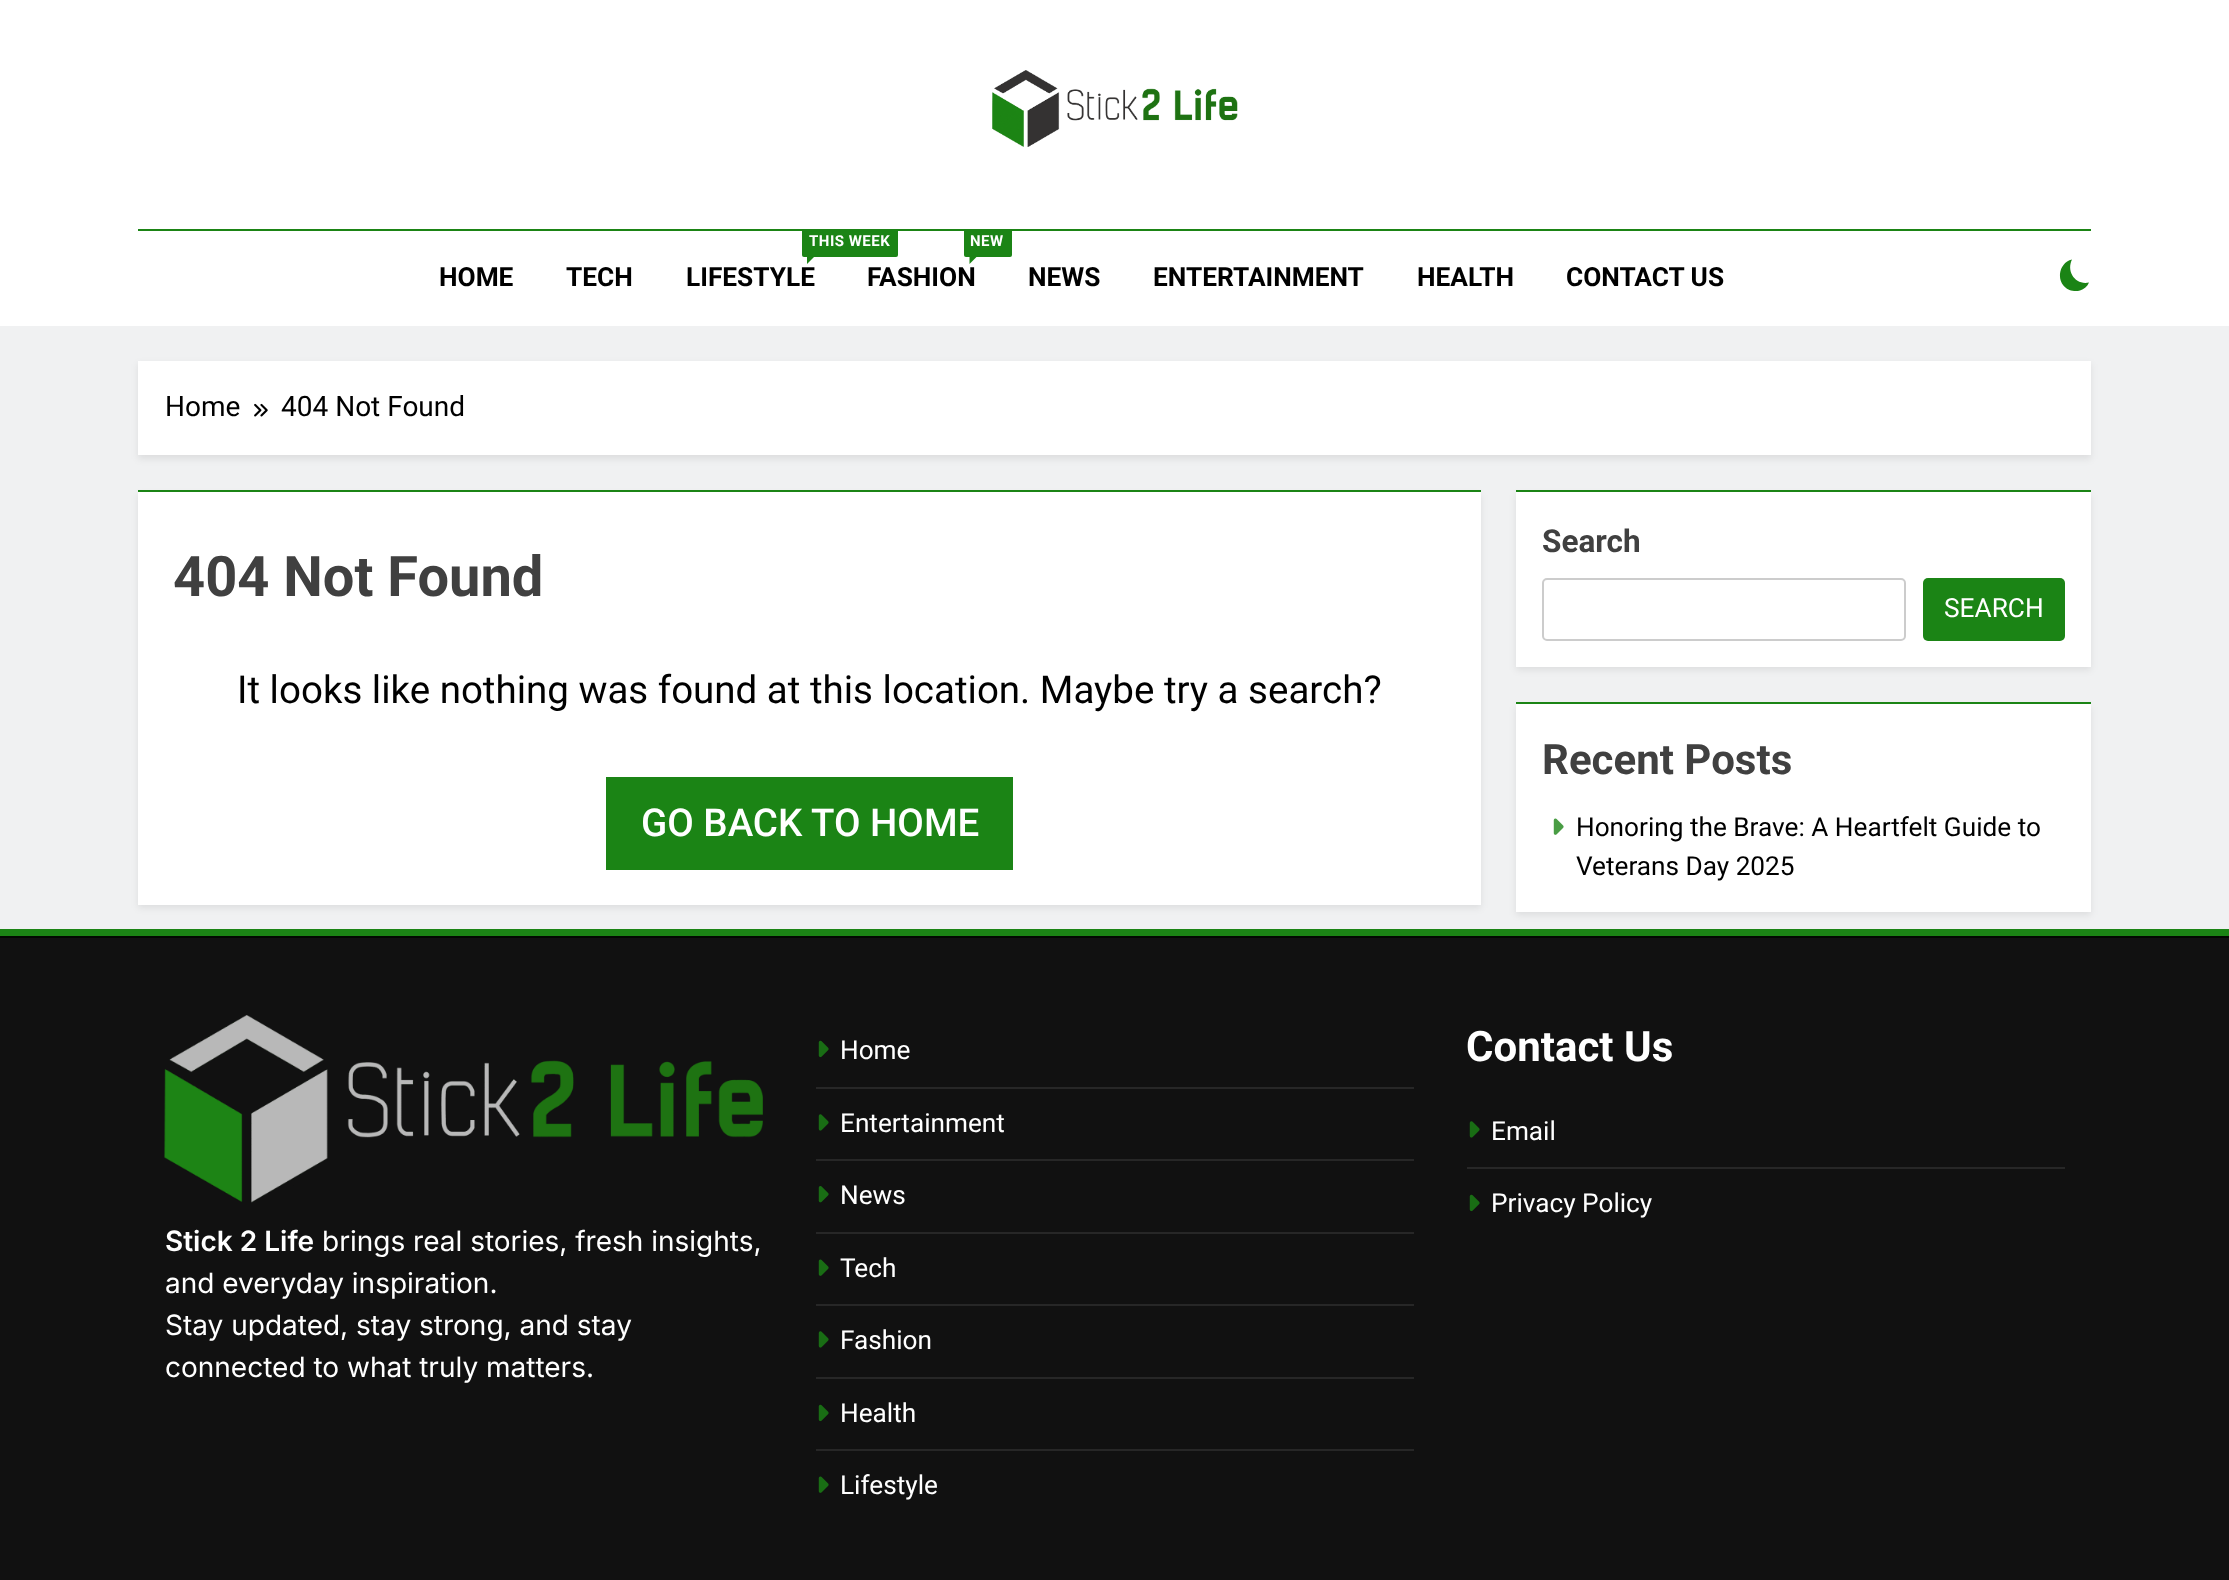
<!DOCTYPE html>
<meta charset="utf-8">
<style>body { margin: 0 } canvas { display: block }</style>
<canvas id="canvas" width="2229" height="1580"></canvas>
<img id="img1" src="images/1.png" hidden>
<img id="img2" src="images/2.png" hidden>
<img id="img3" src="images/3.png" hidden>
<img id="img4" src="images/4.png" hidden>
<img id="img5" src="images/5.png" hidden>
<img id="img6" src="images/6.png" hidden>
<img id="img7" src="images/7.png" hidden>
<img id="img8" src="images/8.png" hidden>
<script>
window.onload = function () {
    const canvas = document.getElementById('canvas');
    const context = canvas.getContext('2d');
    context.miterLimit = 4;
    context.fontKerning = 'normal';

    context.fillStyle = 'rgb(240, 241, 242)';
    context.fillRect(0, 0, 2229, 1580);
    context.fillStyle = 'rgb(17, 17, 17)';
    context.fillRect(0, 938, 2229, 642);
    context.fillStyle = 'rgb(255, 255, 255)';
    context.fillRect(0, 0, 2229, 326);
    context.drawImage(document.getElementById('img1'), 992, 70, 246, 77);
    context.fillStyle = 'rgb(27, 132, 21)';
    context.fillRect(138, 229, 1953, 2);
    context.beginPath();
    context.roundRect(802, 229, 96, 28, 2);
    context.fill();
    context.beginPath();
    context.moveTo(807, 255.5);
    context.lineTo(815.5, 255.5);
    context.lineTo(807, 264);
    context.closePath();
    context.fill();
    context.beginPath();
    context.roundRect(964, 229, 48, 28, 2);
    context.fill();
    context.beginPath();
    context.moveTo(969.5, 255.5);
    context.lineTo(978, 255.5);
    context.lineTo(969.5, 264);
    context.closePath();
    context.fill();
    context.beginPath();
    context.moveTo(2089, 282.5);
    context.bezierCurveTo(2075.5, 285.5, 2066, 271.5, 2072, 259.5);
    context.bezierCurveTo(2057.5, 263, 2055.5, 284, 2069.5, 290);
    context.bezierCurveTo(2072.5, 291, 2076.5, 291.5, 2080, 290.5);
    context.bezierCurveTo(2084, 289, 2087.5, 286.5, 2089, 282.5);
    context.closePath();
    context.fill();
    context.fillStyle = 'rgba(0, 0, 0, 0.08)';
    context.filter = 'blur(3.5px)';
    context.beginPath();
    context.rect(138, 364, 1953, 95);
    context.fill();
    context.filter = 'none';
    context.fillStyle = 'rgb(255, 255, 255)';
    context.fillRect(138, 361, 1953, 94);
    context.drawImage(document.getElementById('img2'), 254, 403, 14, 14);
    context.fillStyle = 'rgba(0, 0, 0, 0.08)';
    context.filter = 'blur(3.5px)';
    context.beginPath();
    context.rect(138, 495, 1343, 413);
    context.fill();
    context.filter = 'none';
    context.fillStyle = 'rgb(255, 255, 255)';
    context.fillRect(138, 492, 1343, 413);
    context.fillStyle = 'rgb(27, 132, 21)';
    context.fillRect(138, 490, 1343, 2);
    context.fillRect(606, 777, 407, 93);
    context.fillStyle = 'rgba(0, 0, 0, 0.08)';
    context.filter = 'blur(3.5px)';
    context.beginPath();
    context.rect(1516, 495, 575, 175);
    context.fill();
    context.filter = 'none';
    context.fillStyle = 'rgb(255, 255, 255)';
    context.fillRect(1516, 492, 575, 175);
    context.fillStyle = 'rgb(27, 132, 21)';
    context.fillRect(1516, 490, 575, 2);
    context.beginPath();
    context.roundRect(1543, 579, 362, 61, 4);
    context.strokeStyle = 'rgb(204, 204, 204)';
    context.lineWidth = 2;
    context.stroke();
    context.beginPath();
    context.roundRect(1923, 578, 142, 63, 5);
    context.fill();
    context.fillStyle = 'rgba(0, 0, 0, 0.08)';
    context.filter = 'blur(3.5px)';
    context.beginPath();
    context.rect(1516, 707, 575, 208);
    context.fill();
    context.filter = 'none';
    context.fillStyle = 'rgb(255, 255, 255)';
    context.fillRect(1516, 704, 575, 208);
    context.fillStyle = 'rgb(27, 132, 21)';
    context.fillRect(1516, 702, 575, 2);
    context.drawImage(document.getElementById('img3'), 1553, 818, 11, 17);
    context.fillRect(0, 929, 2229, 7);
    context.fillStyle = 'rgb(2, 9, 1)';
    context.fillRect(0, 936, 2229, 2);
    context.drawImage(document.getElementById('img4'), 164, 1015, 599, 188);
    context.fillStyle = 'rgb(39, 39, 39)';
    context.fillRect(816, 1087, 598, 2);
    context.drawImage(document.getElementById('img5'), 818, 1040, 11, 18);
    context.fillRect(816, 1159, 598, 2);
    context.drawImage(document.getElementById('img6'), 818, 1114, 11, 17);
    context.fillRect(816, 1232, 598, 2);
    context.drawImage(document.getElementById('img7'), 818, 1186, 11, 17);
    context.fillRect(816, 1304, 598, 2);
    context.drawImage(document.getElementById('img8'), 818, 1259, 11, 17);
    context.fillRect(816, 1377, 598, 2);
    context.drawImage(document.getElementById('img6'), 818, 1331, 11, 17);
    context.fillRect(816, 1449, 598, 2);
    context.drawImage(document.getElementById('img5'), 818, 1404, 11, 18);
    context.drawImage(document.getElementById('img8'), 818, 1476, 11, 17);
    context.fillRect(1467, 1167, 598, 2);
    context.drawImage(document.getElementById('img6'), 1469, 1121, 11, 17);
    context.drawImage(document.getElementById('img5'), 1469, 1194, 11, 18);
    context.font = 'bold 26.25px Roboto';
    context.fillStyle = 'rgb(0, 0, 0)';
    context.fillText('HOME', 439, 286);
    context.fillText('TECH', 566, 286);
    context.letterSpacing = '0.5px';
    context.font = 'bold 15px Roboto';
    context.fillStyle = 'rgb(255, 255, 255)';
    context.fillText('THIS WEEK', 809, 246);
    context.letterSpacing = '0px';
    context.font = 'bold 26.25px Roboto';
    context.fillStyle = 'rgb(0, 0, 0)';
    context.fillText('LIFESTYLE', 686, 286);
    context.letterSpacing = '0.5px';
    context.font = 'bold 15px Roboto';
    context.fillStyle = 'rgb(255, 255, 255)';
    context.fillText('NEW', 970, 246);
    context.letterSpacing = '0px';
    context.font = 'bold 26.25px Roboto';
    context.fillStyle = 'rgb(0, 0, 0)';
    context.fillText('FASHION', 867, 286);
    context.fillText('NEWS', 1028, 286);
    context.fillText('ENTERTAINMENT', 1153, 286);
    context.fillText('HEALTH', 1417, 286);
    context.fillText('CONTACT US', 1566, 286);
    context.font = '28px Roboto';
    context.fillText('Home', 165, 416);
    context.fillText('404 Not Found', 281, 416);
    context.font = 'bold 56px Roboto';
    context.fillStyle = 'rgb(64, 64, 64)';
    context.fillText('404 Not Found', 173, 596);
    context.font = '38.5px Roboto';
    context.fillStyle = 'rgb(0, 0, 0)';
    context.fillText('It looks like nothing was found at this location. Maybe try a search?', 237, 703);
    context.font = '500 38.5px Roboto';
    context.fillStyle = 'rgb(255, 255, 255)';
    context.fillText('GO BACK TO HOME', 641, 836);
    context.font = 'bold 31.5px Roboto';
    context.fillStyle = 'rgb(64, 64, 64)';
    context.fillText('Search', 1542, 552);
    context.font = '26.25px Roboto';
    context.fillStyle = 'rgb(255, 255, 255)';
    context.fillText('SEARCH', 1944, 617);
    context.font = 'bold 42px Roboto';
    context.fillStyle = 'rgb(64, 64, 64)';
    context.fillText('Recent Posts', 1542, 774);
    context.font = '26.2px Roboto';
    context.fillStyle = 'rgb(0, 0, 0)';
    context.fillText('Honoring the Brave: A Heartfelt Guide to', 1576, 836);
    context.fillText('Veterans Day 2025', 1576, 875);
    context.font = '600 28px Inter';
    context.fillStyle = 'rgb(255, 255, 255)';
    context.fillText('Stick 2 Life', 165, 1251);
    context.font = '28px Inter';
    context.fillText('brings real stories, fresh insights,', 322, 1251);
    context.fillText('and everyday inspiration.', 165, 1293);
    context.fillText('Stay updated, stay strong, and stay', 165, 1335);
    context.fillText('connected to what truly matters.', 165, 1377);
    context.font = '26.2px Roboto';
    context.fillText('Home', 840, 1059);
    context.fillText('Entertainment', 840, 1132);
    context.fillText('News', 840, 1204);
    context.fillText('Tech', 840, 1277);
    context.fillText('Fashion', 840, 1349);
    context.fillText('Health', 840, 1422);
    context.fillText('Lifestyle', 840, 1494);
    context.font = 'bold 42px Roboto';
    context.fillText('Contact Us', 1466, 1061);
    context.font = '26.2px Roboto';
    context.fillText('Email', 1491, 1140);
    context.fillText('Privacy Policy', 1491, 1212);
};
</script>
